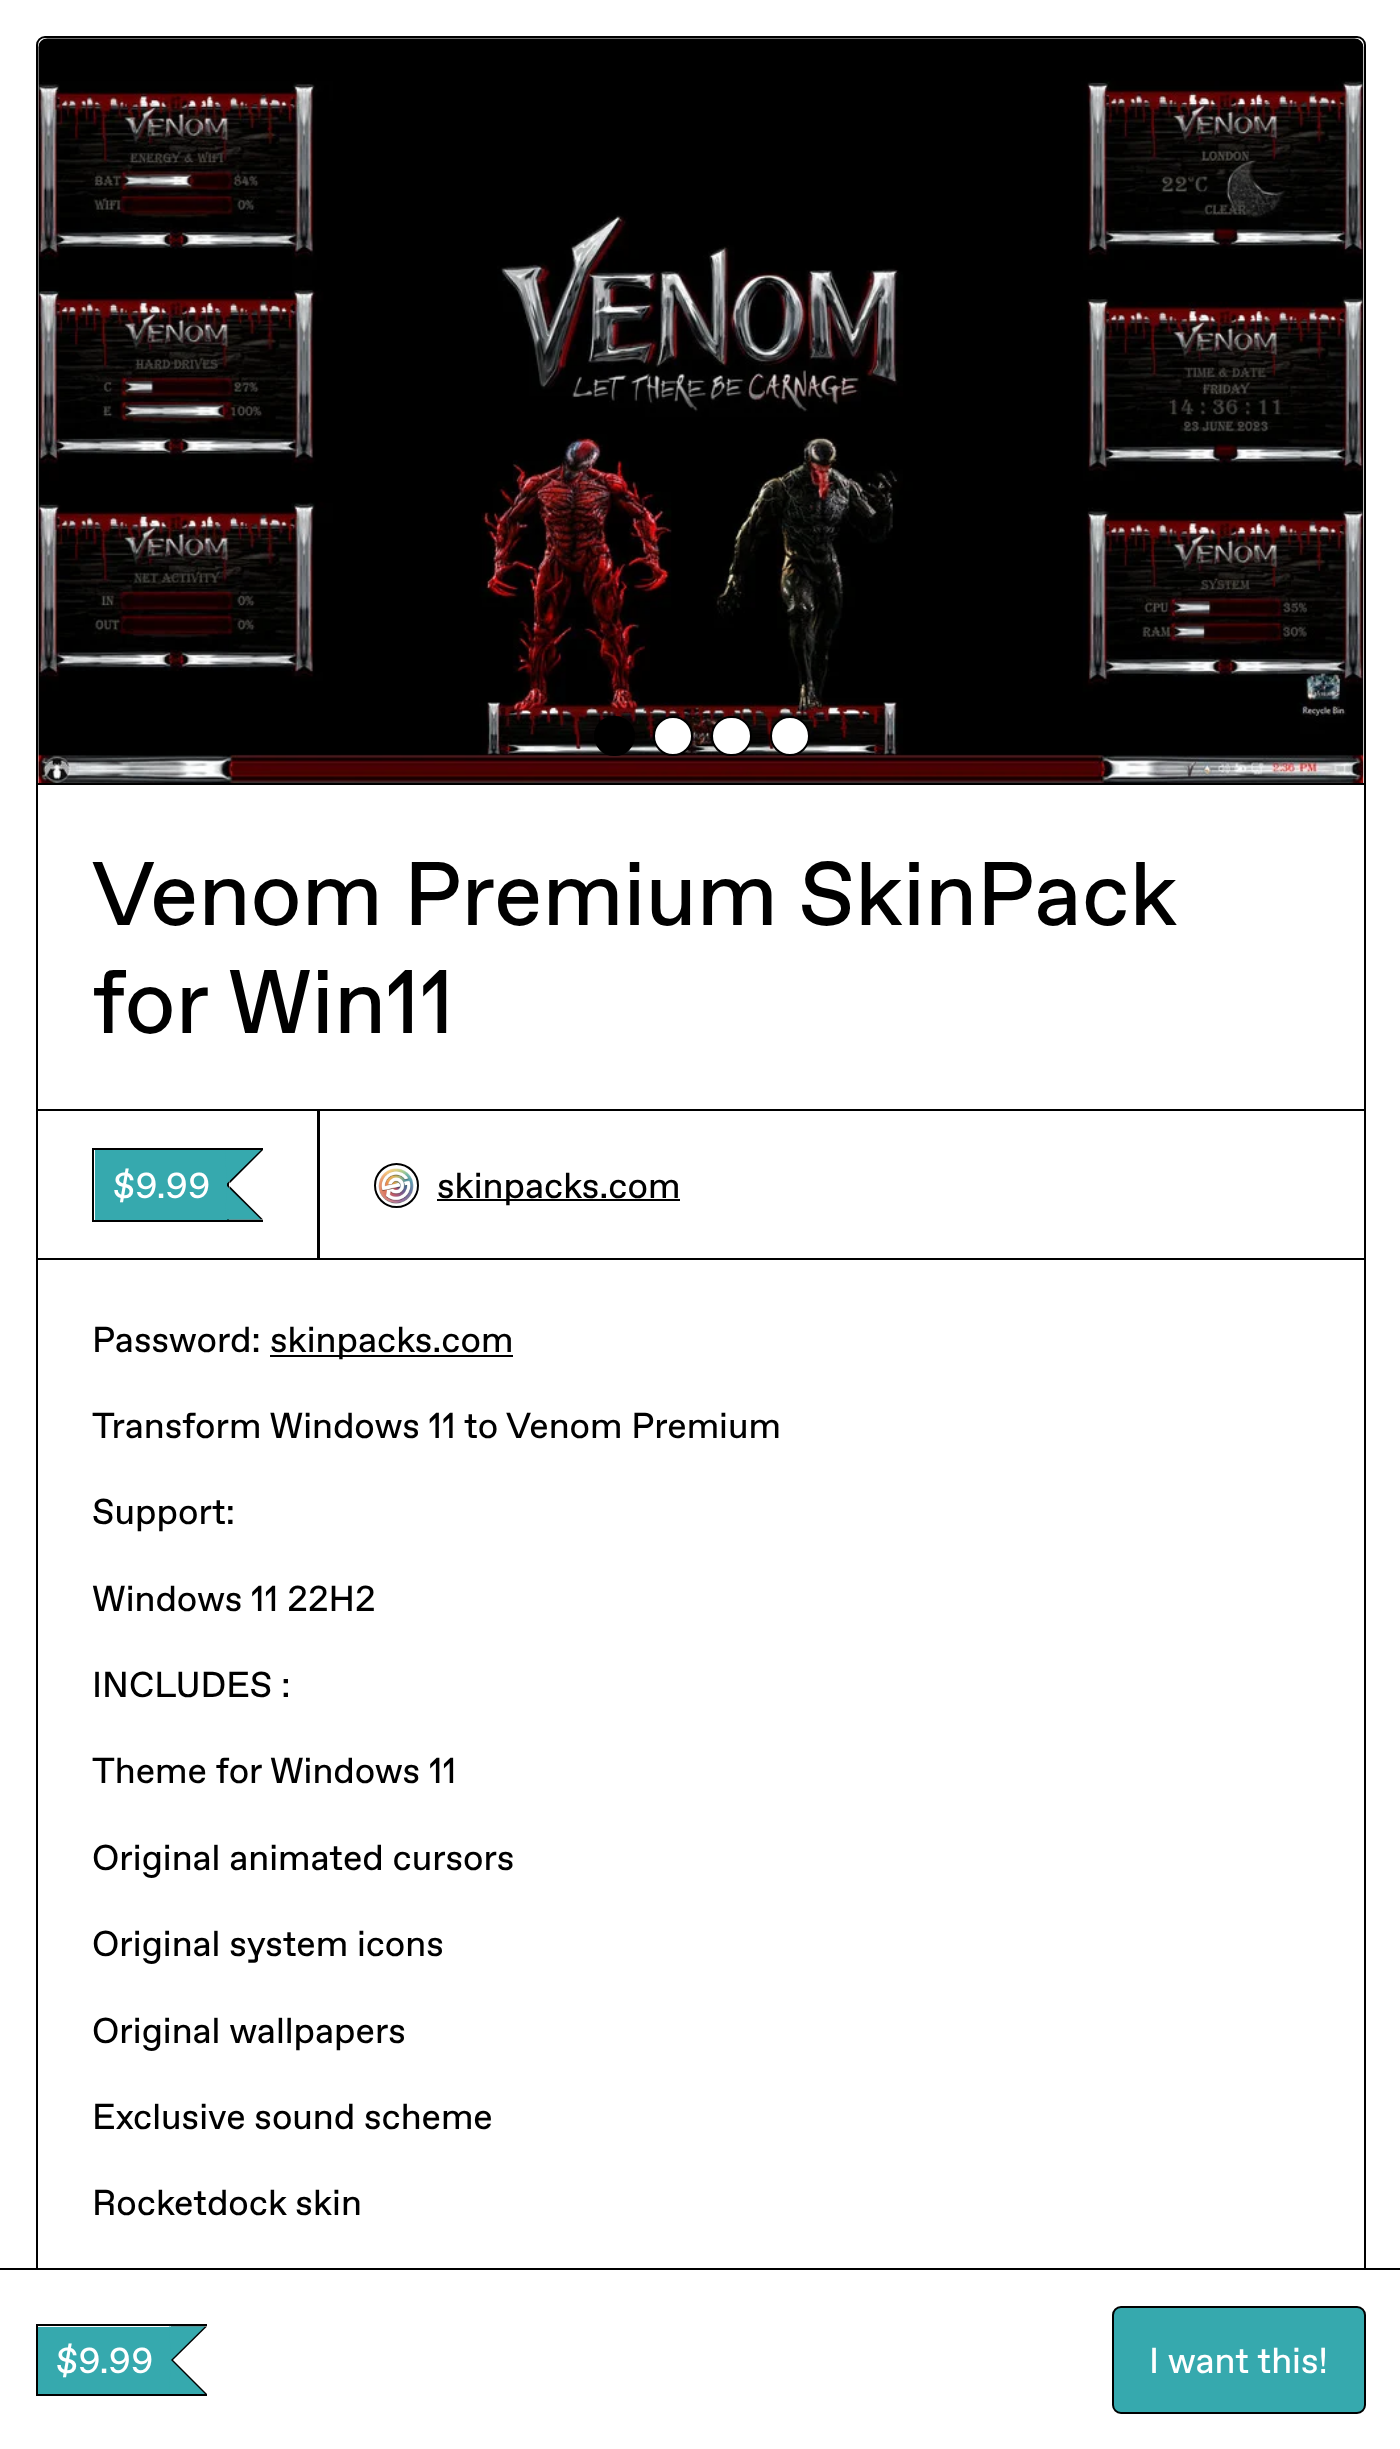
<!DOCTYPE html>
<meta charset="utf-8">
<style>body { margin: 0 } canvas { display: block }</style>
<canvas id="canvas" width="1400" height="2449"></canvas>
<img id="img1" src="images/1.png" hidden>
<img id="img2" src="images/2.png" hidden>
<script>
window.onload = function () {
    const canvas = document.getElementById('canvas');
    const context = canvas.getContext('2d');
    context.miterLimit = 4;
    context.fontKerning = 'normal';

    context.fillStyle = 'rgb(255, 255, 255)';
    context.fillRect(0, 0, 1400, 2449);
    context.beginPath();
    context.roundRect(37, 37, 1328, 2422, 8);
    context.strokeStyle = 'rgb(0, 0, 0)';
    context.lineWidth = 2;
    context.stroke();
    context.fillStyle = 'rgb(0, 0, 0)';
    context.fillRect(38, 783, 1326, 2);
    context.drawImage(document.getElementById('img1'), 38, 38, 1326, 745);
    context.beginPath();
    context.roundRect(595, 717, 39, 38, 19);
    context.fill();
    context.stroke();
    context.fillStyle = 'rgb(255, 255, 255)';
    context.beginPath();
    context.arc(673, 736, 19, 0, 2 * Math.PI);
    context.fill();
    context.stroke();
    context.beginPath();
    context.roundRect(712, 717, 39, 38, 19);
    context.fill();
    context.stroke();
    context.beginPath();
    context.arc(790, 736, 19, 0, 2 * Math.PI);
    context.fill();
    context.stroke();
    context.strokeRect(37, 1110, 282, 149);
    context.fillStyle = 'rgb(0, 0, 0)';
    context.fillRect(92, 1148, 171, 2);
    context.fillRect(92, 1220, 171, 2);
    context.fillRect(92, 1148, 2, 74);
    context.fillStyle = 'rgb(54, 169, 174)';
    context.fillRect(95, 1150, 132, 70);
    context.fillStyle = 'rgb(0, 0, 0)';
    context.beginPath();
    context.moveTo(227, 1150);
    context.lineTo(263, 1150);
    context.lineTo(229.5, 1183.5);
    context.closePath();
    context.fill();
    context.beginPath();
    context.moveTo(263, 1219.5);
    context.lineTo(227, 1219.5);
    context.lineTo(229.5, 1186);
    context.closePath();
    context.fill();
    context.fillRect(227, 1181, 2, 39);
    context.fillStyle = 'rgb(54, 169, 174)';
    context.beginPath();
    context.moveTo(225, 1150);
    context.lineTo(261, 1150);
    context.lineTo(227, 1183.5);
    context.closePath();
    context.fill();
    context.beginPath();
    context.moveTo(261, 1219.5);
    context.lineTo(225, 1219.5);
    context.lineTo(227, 1186);
    context.closePath();
    context.fill();
    context.strokeRect(318, 1110, 1047, 149);
    context.beginPath();
    context.arc(396.5, 1185.5, 21.5, 0, 2 * Math.PI);
    context.stroke();
    context.drawImage(document.getElementById('img2'), 378, 1168, 36, 36);
    context.fillStyle = 'rgb(0, 0, 0)';
    context.fillRect(437, 1199, 243, 2);
    context.fillRect(270, 1355, 243, 2);
    context.beginPath();
    context.moveTo(0, 2268);
    context.lineTo(0, 2270);
    context.lineTo(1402, 2270);
    context.lineTo(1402, 2448);
    context.lineTo(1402, 2268);
    context.closePath();
    context.fill();
    context.fillStyle = 'rgb(255, 255, 255)';
    context.fillRect(36, 2270, 1330, 179);
    context.fillStyle = 'rgb(0, 0, 0)';
    context.fillRect(36, 2324, 171, 2);
    context.fillRect(36, 2394, 171, 2);
    context.fillRect(36, 2324, 2, 72);
    context.fillStyle = 'rgb(54, 169, 174)';
    context.fillRect(38, 2327, 133, 67);
    context.fillStyle = 'rgb(0, 0, 0)';
    context.beginPath();
    context.moveTo(171, 2326.5);
    context.lineTo(207, 2326.5);
    context.lineTo(173, 2360);
    context.closePath();
    context.fill();
    context.beginPath();
    context.moveTo(207, 2394);
    context.lineTo(171, 2394);
    context.lineTo(173, 2360);
    context.closePath();
    context.fill();
    context.fillRect(171, 2358, 2, 4);
    context.fillStyle = 'rgb(54, 169, 174)';
    context.beginPath();
    context.moveTo(169, 2326.5);
    context.lineTo(205, 2326.5);
    context.lineTo(171, 2360);
    context.closePath();
    context.fill();
    context.beginPath();
    context.moveTo(205, 2394);
    context.lineTo(169, 2394);
    context.lineTo(171, 2360);
    context.closePath();
    context.fill();
    context.beginPath();
    context.roundRect(1113, 2307, 252, 106, 8);
    context.fill();
    context.stroke();
    context.wordSpacing = '-1px';
    context.font = '90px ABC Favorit';
    context.fillStyle = 'rgb(0, 0, 0)';
    context.fillText('Venom Premium SkinPack', 92, 925);
    context.wordSpacing = '0px';
    context.fillText('for Win11', 92, 1033);
    context.font = '36px ABC Favorit';
    context.fillStyle = 'rgb(255, 255, 255)';
    context.fillText('$9.99', 113, 1198);
    context.fillStyle = 'rgb(0, 0, 0)';
    context.fillText('skinpacks.com', 437, 1198);
    context.fillText('Password:', 92, 1352);
    context.fillText('skinpacks.com', 270, 1352);
    context.fillText('Transform Windows 11 to Venom Premium', 92, 1438);
    context.fillText('Support:', 92, 1524);
    context.fillText('Windows 11 22H2', 92, 1611);
    context.fillText('INCLUDES :', 92, 1697);
    context.fillText('Theme for Windows 11', 92, 1783);
    context.fillText('Original animated cursors', 92, 1870);
    context.fillText('Original system icons', 92, 1956);
    context.fillText('Original wallpapers', 92, 2043);
    context.fillText('Exclusive sound scheme', 92, 2129);
    context.fillText('Rocketdock skin', 92, 2215);
    context.fillStyle = 'rgb(255, 255, 255)';
    context.fillText('$9.99', 56, 2373);
    context.fillText('I want this!', 1149, 2373);
};
</script>
